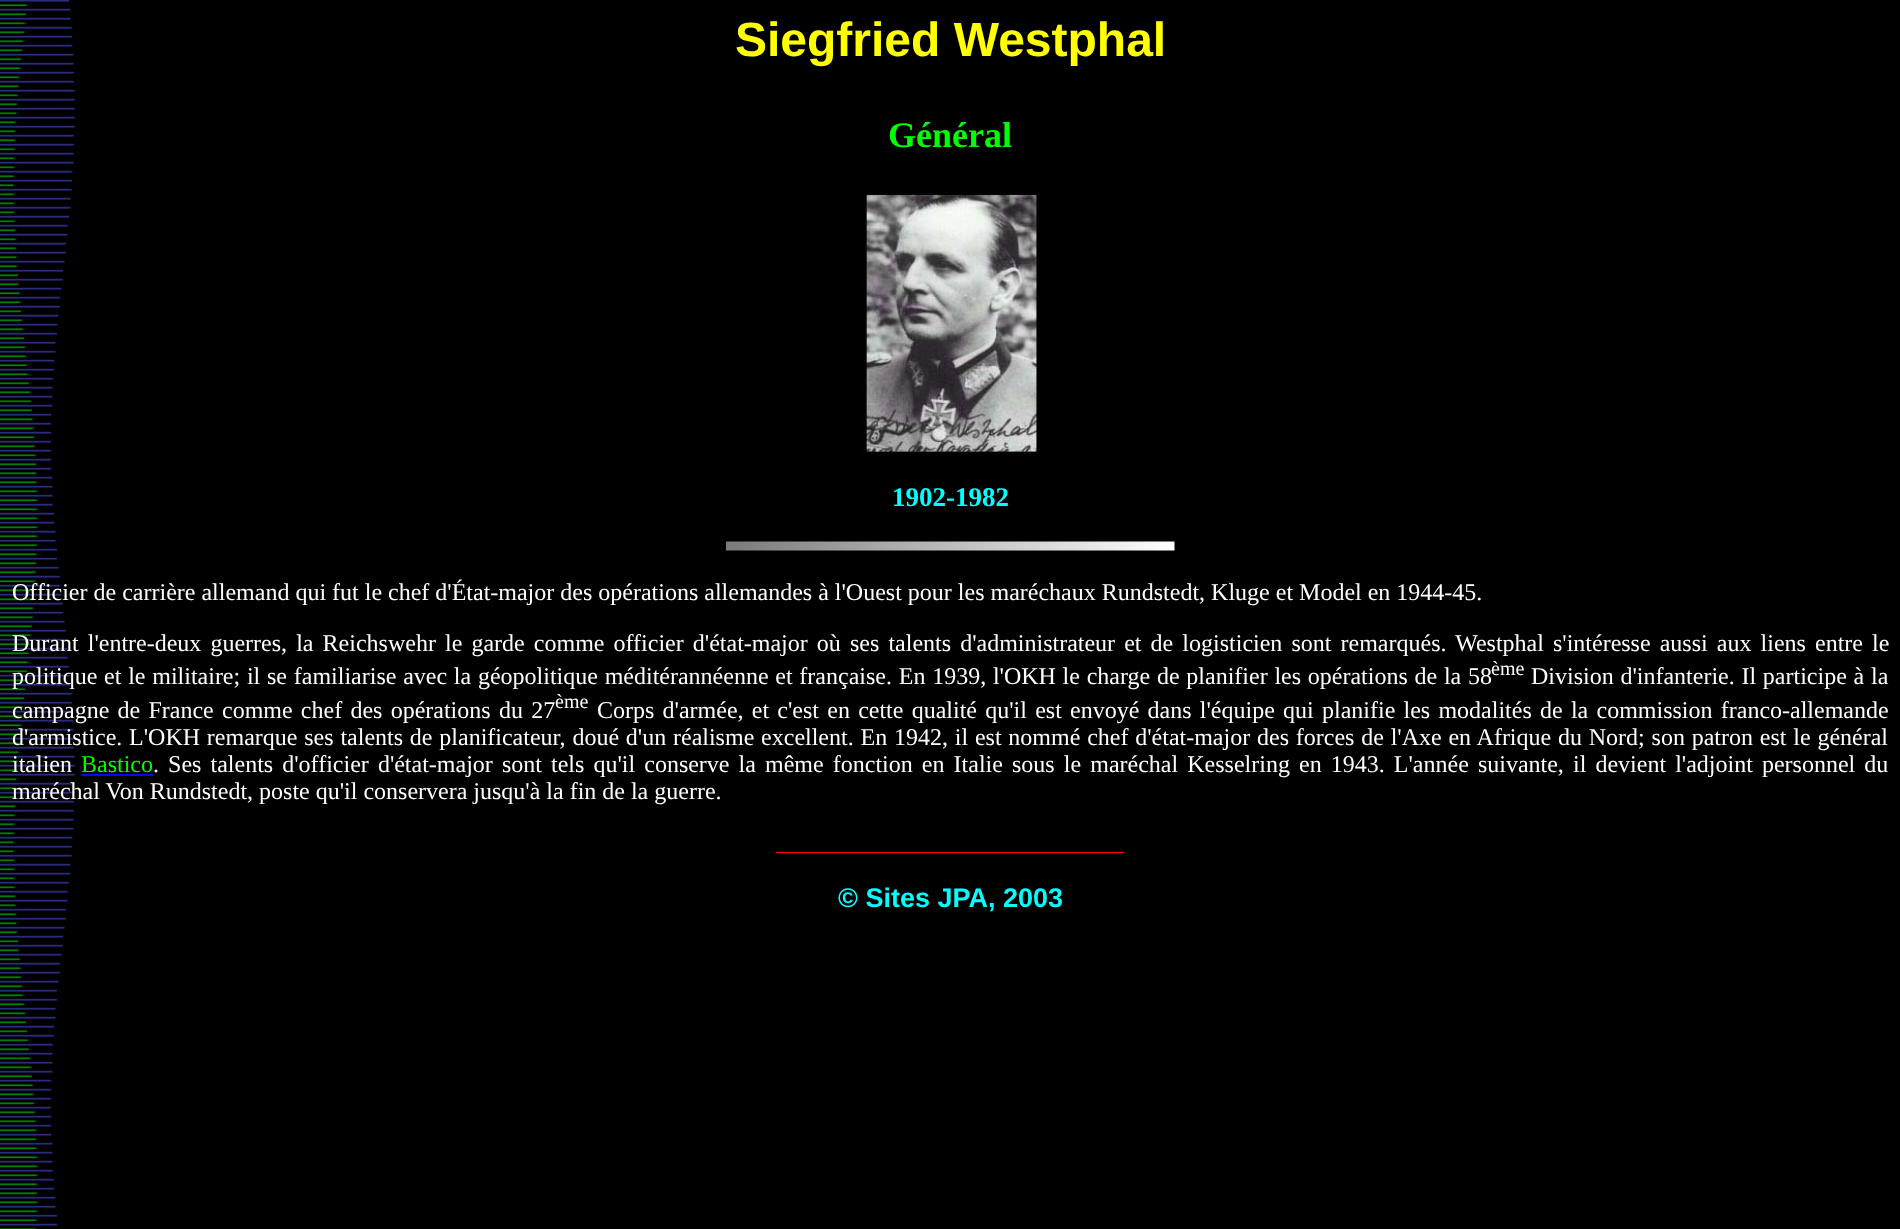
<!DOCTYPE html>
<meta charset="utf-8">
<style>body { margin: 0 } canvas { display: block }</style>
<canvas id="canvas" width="1900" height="1229"></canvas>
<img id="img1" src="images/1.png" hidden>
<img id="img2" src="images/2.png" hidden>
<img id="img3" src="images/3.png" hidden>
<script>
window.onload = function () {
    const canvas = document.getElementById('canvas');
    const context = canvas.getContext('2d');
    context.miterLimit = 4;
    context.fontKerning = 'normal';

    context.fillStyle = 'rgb(255, 255, 255)';
    context.fillRect(0, 0, 1900, 1229);
    context.drawImage(document.getElementById('img1'), 0, 0, 1900, 1229);
    context.drawImage(document.getElementById('img2'), 862, 192, 177, 263);
    context.drawImage(document.getElementById('img3'), 726, 541, 449, 10);
    context.fillStyle = 'rgb(0, 0, 255)';
    context.fillRect(81, 774, 72, 2);
    context.font = 'bold 48px Liberation Sans';
    context.fillStyle = 'rgb(255, 255, 0)';
    context.fillText('Siegfried Westphal', 735, 56);
    context.font = 'bold 36px Liberation Serif';
    context.fillStyle = 'rgb(0, 255, 0)';
    context.fillText('Général', 888, 147);
    context.font = 'bold 27px Liberation Serif';
    context.fillStyle = 'rgb(0, 255, 255)';
    context.fillText('1902-1982', 892, 506);
    context.font = '24px Liberation Serif';
    context.fillStyle = 'rgb(255, 255, 255)';
    context.fillText('Officier de carrière allemand qui fut le chef d\'État-major des opérations allemandes à l\'Ouest pour les maréchaux Rundstedt, Kluge et Model en 1944-45.', 12, 600);
    context.wordSpacing = '3.1px';
    context.fillText('Durant l\'entre-deux guerres, la Reichswehr le garde comme officier d\'état-major où ses talents d\'administrateur et de logisticien sont remarqués. Westphal s\'intéresse aussi aux liens entre le', 12, 651);
    context.wordSpacing = '0.75px';
    context.fillText('politique et le militaire; il se familiarise avec la géopolitique méditérannéenne et française. En 1939, l\'OKH le charge de planifier les opérations de la 58', 12, 684);
    context.wordSpacing = '0px';
    context.font = '20px Liberation Serif';
    context.fillText('ème', 1491, 675);
    context.wordSpacing = '0.75px';
    context.font = '24px Liberation Serif';
    context.fillText('Division d\'infanterie. Il participe à la', 1531, 684);
    context.wordSpacing = '2.25px';
    context.fillText('campagne de France comme chef des opérations du 27', 12, 718);
    context.wordSpacing = '0px';
    context.font = '20px Liberation Serif';
    context.fillText('ème', 555, 708);
    context.wordSpacing = '2.25px';
    context.font = '24px Liberation Serif';
    context.fillText('Corps d\'armée, et c\'est en cette qualité qu\'il est envoyé dans l\'équipe qui planifie les modalités de la commission franco-allemande', 597, 718);
    context.wordSpacing = '0.8px';
    context.fillText('d\'armistice. L\'OKH remarque ses talents de planificateur, doué d\'un réalisme excellent. En 1942, il est nommé chef d\'état-major des forces de l\'Axe en Afrique du Nord; son patron est le général', 12, 745);
    context.wordSpacing = '0px';
    context.fillText('italien', 12, 772);
    context.fillStyle = 'rgb(0, 255, 0)';
    context.fillText('Bastico', 81, 772);
    context.wordSpacing = '3.1px';
    context.fillStyle = 'rgb(255, 255, 255)';
    context.fillText('. Ses talents d\'officier d\'état-major sont tels qu\'il conserve la même fonction en Italie sous le maréchal Kesselring en 1943. L\'année suivante, il devient l\'adjoint personnel du', 153, 772);
    context.wordSpacing = '0px';
    context.fillText('maréchal Von Rundstedt, poste qu\'il conservera jusqu\'à la fin de la guerre.', 12, 799);
    context.fillStyle = 'rgb(255, 0, 0)';
    context.fillText('_____________________________', 776, 850);
    context.font = 'bold 27px Liberation Sans';
    context.fillStyle = 'rgb(0, 255, 255)';
    context.fillText('© Sites JPA, 2003', 838, 907);
};
</script>
